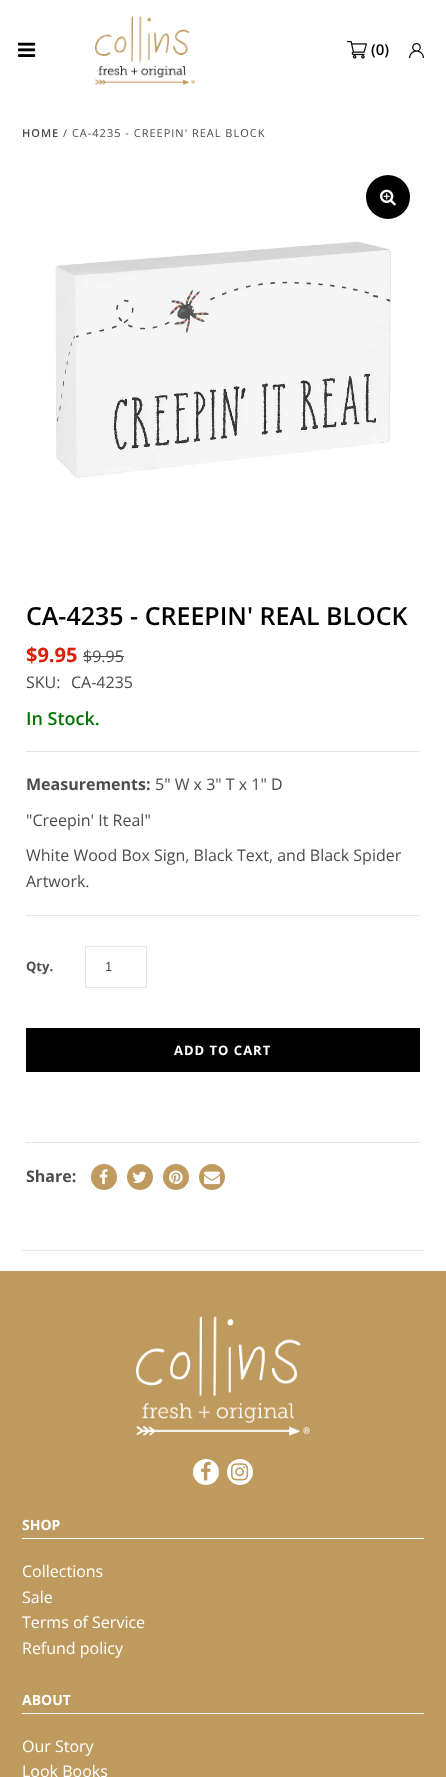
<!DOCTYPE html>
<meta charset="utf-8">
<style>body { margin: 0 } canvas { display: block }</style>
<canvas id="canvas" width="446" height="1777"></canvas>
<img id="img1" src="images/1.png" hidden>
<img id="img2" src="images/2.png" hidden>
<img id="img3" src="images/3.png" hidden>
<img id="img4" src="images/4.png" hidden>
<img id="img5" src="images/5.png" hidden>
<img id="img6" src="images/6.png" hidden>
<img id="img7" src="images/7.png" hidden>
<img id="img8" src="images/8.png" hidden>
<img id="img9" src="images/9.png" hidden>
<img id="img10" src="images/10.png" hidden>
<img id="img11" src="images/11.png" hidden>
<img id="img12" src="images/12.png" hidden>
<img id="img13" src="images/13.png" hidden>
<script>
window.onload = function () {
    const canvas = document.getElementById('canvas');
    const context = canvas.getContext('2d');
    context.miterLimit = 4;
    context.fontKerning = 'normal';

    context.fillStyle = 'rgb(255, 255, 255)';
    context.fillRect(0, 0, 446, 1777);
    context.drawImage(document.getElementById('img1'), 18, 42, 18, 15);
    context.drawImage(document.getElementById('img2'), 95, 16, 100, 69);
    context.drawImage(document.getElementById('img3'), 347, 41, 20, 18);
    context.drawImage(document.getElementById('img4'), 409, 43, 15, 15);
    context.fillStyle = 'rgb(0, 0, 0)';
    context.beginPath();
    context.arc(388, 197, 22, 0, 2 * Math.PI);
    context.fill();
    context.drawImage(document.getElementById('img5'), 380, 189, 16, 17);
    context.drawImage(document.getElementById('img6'), 55, 241, 336, 237);
    context.fillStyle = 'rgb(76, 76, 78)';
    context.fillRect(83, 656, 41, 1);
    context.fillStyle = 'rgb(229, 229, 229)';
    context.fillRect(26, 751, 394, 1);
    context.fillRect(26, 915, 394, 1);
    context.strokeStyle = 'rgb(229, 229, 229)';
    context.strokeRect(85.5, 946.5, 61, 41);
    context.fillStyle = 'rgb(0, 0, 0)';
    context.fillRect(26, 1028, 394, 44);
    context.fillStyle = 'rgb(229, 229, 229)';
    context.fillRect(26, 1142, 394, 1);
    context.fillStyle = 'rgb(190, 154, 94)';
    context.beginPath();
    context.arc(104, 1177, 13, 0, 2 * Math.PI);
    context.fill();
    context.drawImage(document.getElementById('img7'), 99, 1169, 9, 16);
    context.beginPath();
    context.arc(140, 1177, 13, 0, 2 * Math.PI);
    context.fill();
    context.drawImage(document.getElementById('img8'), 132, 1171, 15, 12);
    context.beginPath();
    context.arc(176, 1177, 13, 0, 2 * Math.PI);
    context.fill();
    context.drawImage(document.getElementById('img9'), 169, 1170, 14, 15);
    context.beginPath();
    context.arc(212, 1177, 13, 0, 2 * Math.PI);
    context.fill();
    context.drawImage(document.getElementById('img10'), 204, 1171, 16, 14);
    context.fillStyle = 'rgb(229, 229, 229)';
    context.fillRect(22, 1250, 402, 1);
    context.fillStyle = 'rgb(190, 154, 94)';
    context.fillRect(0, 1271, 446, 506);
    context.drawImage(document.getElementById('img11'), 136, 1316, 174, 120);
    context.fillStyle = 'rgb(255, 255, 255)';
    context.beginPath();
    context.arc(206, 1472, 13, 0, 2 * Math.PI);
    context.fill();
    context.drawImage(document.getElementById('img12'), 201, 1461, 10, 20);
    context.beginPath();
    context.arc(240, 1472, 13, 0, 2 * Math.PI);
    context.fill();
    context.drawImage(document.getElementById('img13'), 231, 1463, 18, 18);
    context.fillRect(22, 1538, 402, 1);
    context.fillRect(22, 1713, 402, 1);
    context.font = '600 15px Open Sans';
    context.fillStyle = 'rgb(0, 0, 0)';
    context.fillText('(0)', 371, 55);
    context.letterSpacing = '1px';
    context.font = '600 11px Open Sans';
    context.fillStyle = 'rgb(76, 76, 78)';
    context.fillText('HOME', 22, 137);
    context.font = '11px Open Sans';
    context.fillText('/ CA-4235 - CREEPIN\' REAL BLOCK', 63, 137);
    context.letterSpacing = '0px';
    context.font = '600 25px Open Sans';
    context.fillStyle = 'rgb(0, 0, 0)';
    context.fillText('CA-4235 - CREEPIN\' REAL BLOCK', 26, 625);
    context.font = 'bold 20px Open Sans';
    context.fillStyle = 'rgb(217, 32, 8)';
    context.fillText('$9.95', 26, 662);
    context.font = '16px Open Sans';
    context.fillStyle = 'rgb(76, 76, 78)';
    context.fillText('$9.95', 83, 662);
    context.fillText('SKU:', 26, 688);
    context.fillText('CA-4235', 71, 688);
    context.font = '600 18px Open Sans';
    context.fillStyle = 'rgb(0, 118, 0)';
    context.fillText('In Stock.', 26, 725);
    context.font = 'bold 16px Open Sans';
    context.fillStyle = 'rgb(76, 76, 78)';
    context.fillText('Measurements:', 26, 790);
    context.font = '16px Open Sans';
    context.fillText('5" W x 3" T x 1" D', 155, 790);
    context.fillText('"Creepin\' It Real"', 26, 826);
    context.fillText('White Wood Box Sign, Black Text, and Black Spider', 26, 861);
    context.fillText('Artwork.', 26, 887);
    context.font = 'bold 13px Open Sans';
    context.fillText('Qty.', 26, 971);
    context.font = '13px Liberation Sans';
    context.fillText('1', 105, 971);
    context.letterSpacing = '1px';
    context.font = 'bold 13px Open Sans';
    context.fillStyle = 'rgb(255, 255, 255)';
    context.fillText('ADD TO CART', 174, 1055);
    context.letterSpacing = '0px';
    context.font = 'bold 16px Open Sans';
    context.fillStyle = 'rgb(76, 76, 78)';
    context.fillText('Share:', 26, 1182);
    context.font = 'bold 14px Open Sans';
    context.fillStyle = 'rgb(255, 255, 255)';
    context.fillText('SHOP', 22, 1530);
    context.font = '16px Open Sans';
    context.fillText('Collections', 22, 1577);
    context.fillText('Sale', 22, 1603);
    context.fillText('Terms of Service', 22, 1628);
    context.fillText('Refund policy', 22, 1654);
    context.font = 'bold 14px Open Sans';
    context.fillText('ABOUT', 22, 1705);
    context.font = '16px Open Sans';
    context.fillText('Our Story', 22, 1752);
    context.fillText('Look Books', 22, 1777);
};
</script>
